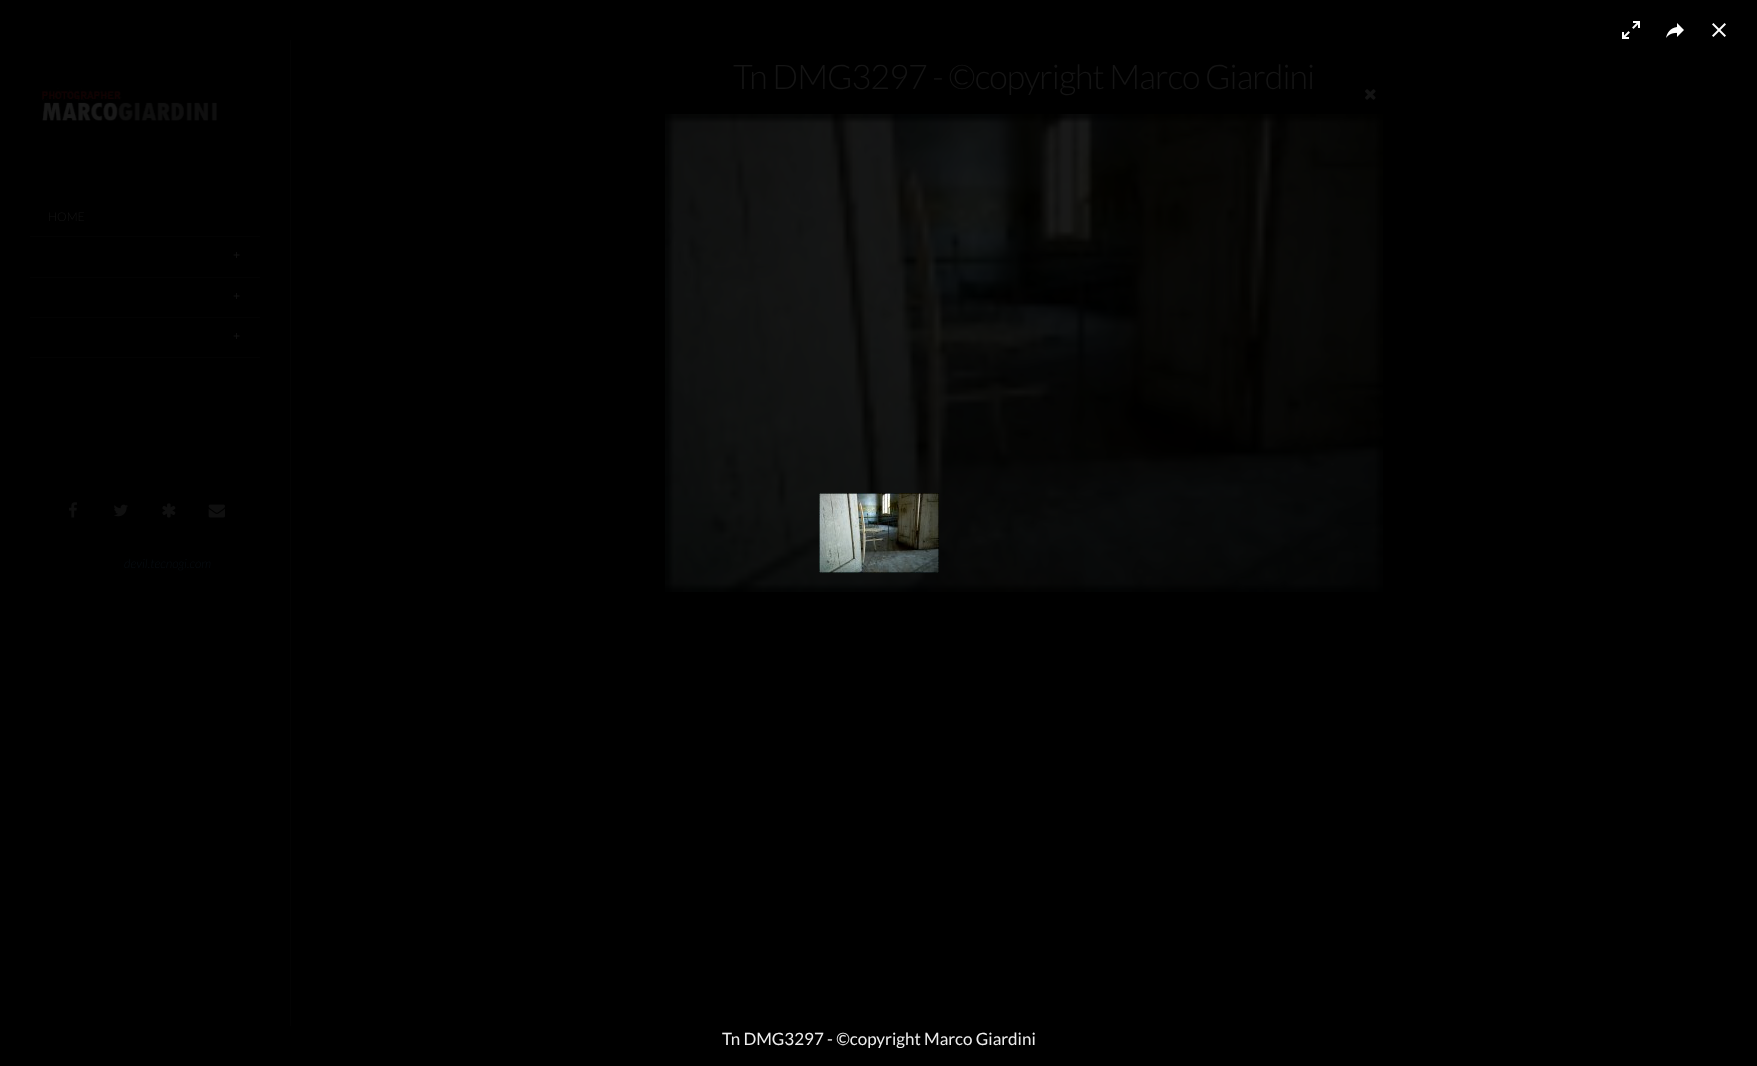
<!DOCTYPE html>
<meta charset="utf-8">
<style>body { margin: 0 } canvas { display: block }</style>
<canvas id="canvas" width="1757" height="1066"></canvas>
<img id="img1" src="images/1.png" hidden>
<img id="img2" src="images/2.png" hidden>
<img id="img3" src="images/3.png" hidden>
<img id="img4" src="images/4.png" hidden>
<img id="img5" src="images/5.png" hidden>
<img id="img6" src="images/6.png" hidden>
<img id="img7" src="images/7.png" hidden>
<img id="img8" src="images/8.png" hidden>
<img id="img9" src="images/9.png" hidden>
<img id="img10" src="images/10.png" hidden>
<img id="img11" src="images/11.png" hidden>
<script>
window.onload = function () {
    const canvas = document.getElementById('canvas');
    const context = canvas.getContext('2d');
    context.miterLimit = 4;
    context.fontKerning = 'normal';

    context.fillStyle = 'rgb(0, 0, 0)';
    context.fillRect(0, 0, 1757, 1066);
    context.drawImage(document.getElementById('img1'), 1365, 89, 11, 11);
    context.drawImage(document.getElementById('img2'), 665, 114, 718, 478);
    context.drawImage(document.getElementById('img3'), 42, 88, 175, 33);
    context.fillStyle = 'rgb(3, 3, 3)';
    context.fillRect(30, 236, 230, 1);
    context.fillRect(30, 277, 230, 1);
    context.fillRect(30, 317, 230, 1);
    context.fillRect(30, 357, 230, 1);
    context.drawImage(document.getElementById('img4'), 69, 502, 8, 16);
    context.drawImage(document.getElementById('img5'), 114, 504, 14, 13);
    context.drawImage(document.getElementById('img6'), 162, 503, 14, 15);
    context.drawImage(document.getElementById('img7'), 208, 504, 17, 14);
    context.fillRect(290, 40, 1, 986);
    context.drawImage(document.getElementById('img8'), 819, 493, 120, 80);
    context.drawImage(document.getElementById('img9'), 1622, 21, 18, 18);
    context.drawImage(document.getElementById('img10'), 1666, 23, 18, 15);
    context.drawImage(document.getElementById('img11'), 1712, 23, 14, 14);
    context.letterSpacing = '-0.95px';
    context.font = '300 34px Lato';
    context.fillStyle = 'rgb(20, 20, 20)';
    context.fillText('Tn DMG3297 - ©copyright Marco Giardini', 733, 89);
    context.letterSpacing = '0px';
    context.font = '300 12px Lato';
    context.fillText('HOME', 48, 221);
    context.font = '12px Liberation Mono';
    context.fillText('+', 233, 259);
    context.fillText('+', 233, 300);
    context.fillText('+', 233, 340);
    context.font = 'italic 300 12.75px Lato';
    context.fillStyle = 'rgb(7, 13, 18)';
    context.fillText('devil.tecnogi.com', 124, 568);
    context.font = '17px Lato';
    context.fillStyle = 'rgb(238, 238, 238)';
    context.fillText('Tn DMG3297 - ©copyright Marco Giardini', 722, 1045);
};
</script>
